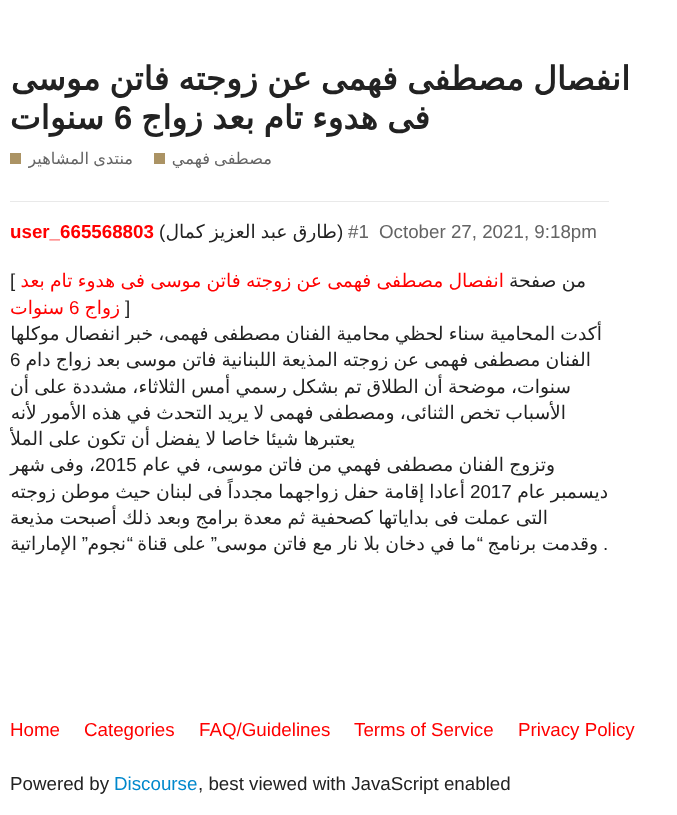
<!DOCTYPE html>
<meta charset="utf-8">
<style>body { margin: 0 } canvas { display: block }</style>
<canvas id="canvas" width="677" height="815"></canvas>
<script>
window.onload = function () {
    const canvas = document.getElementById('canvas');
    const context = canvas.getContext('2d');
    context.miterLimit = 4;
    context.fontKerning = 'normal';

    context.fillStyle = 'rgb(255, 255, 255)';
    context.fillRect(0, 0, 677, 815);
    context.fillStyle = 'rgb(171, 147, 100)';
    context.fillRect(154, 153, 11, 11);
    context.fillRect(10, 153, 11, 11);
    context.fillStyle = 'rgb(233, 233, 233)';
    context.fillRect(10, 201, 599, 1);
    context.wordSpacing = '-1.25px';
    context.direction = 'rtl';
    context.font = 'bold 32.8px DejaVu Sans';
    context.fillStyle = 'rgb(34, 34, 34)';
    context.fillText('انفصال مصطفى فهمى عن زوجته فاتن موسى', 630, 90);
    context.fillText('فى هدوء تام بعد زواج', 430, 129);
    context.wordSpacing = '0px';
    context.direction = 'ltr';
    context.font = 'bold 32.8px Liberation Sans';
    context.fillText('6', 114, 129);
    context.direction = 'rtl';
    context.font = 'bold 32.8px DejaVu Sans';
    context.fillText('سنوات', 104, 129);
    context.wordSpacing = '-1px';
    context.font = '16.25px DejaVu Sans';
    context.fillStyle = 'rgb(100, 100, 100)';
    context.fillText('مصطفى فهمي', 272, 164);
    context.save();
    context.beginPath();
    context.rect(28, 148, 105, 22);
    context.clip();
    context.fillText('منتدى المشاهير', 133, 164);
    context.restore();
    context.wordSpacing = '0px';
    context.direction = 'ltr';
    context.font = '18.75px Liberation Sans';
    context.fillText('October 27, 2021, 9:18pm', 379, 238);
    context.fillText('#1', 348, 238);
    context.wordSpacing = '-0.75px';
    context.direction = 'rtl';
    context.font = '18.75px DejaVu Sans';
    context.fillStyle = 'rgb(34, 34, 34)';
    context.fillText('طارق عبد العزيز كمال', 337, 238);
    context.wordSpacing = '0px';
    context.direction = 'ltr';
    context.font = '18.75px Liberation Sans';
    context.fillText(')', 337, 238);
    context.fillText('(', 159, 238);
    context.font = 'bold 18.75px Liberation Sans';
    context.fillStyle = 'rgb(255, 0, 0)';
    context.fillText('user_665568803', 10, 238);
    context.wordSpacing = '-0.75px';
    context.direction = 'rtl';
    context.font = '18.75px DejaVu Sans';
    context.fillStyle = 'rgb(34, 34, 34)';
    context.fillText('من صفحة', 586, 287);
    context.fillStyle = 'rgb(255, 0, 0)';
    context.fillText('انفصال مصطفى فهمى عن زوجته فاتن موسى فى هدوء تام بعد', 504, 287);
    context.wordSpacing = '0px';
    context.direction = 'ltr';
    context.font = '18.75px Liberation Sans';
    context.fillStyle = 'rgb(34, 34, 34)';
    context.fillText('[', 10, 287);
    context.fillText(']', 125, 314);
    context.direction = 'rtl';
    context.font = '18.75px DejaVu Sans';
    context.fillStyle = 'rgb(255, 0, 0)';
    context.fillText('زواج', 120, 314);
    context.direction = 'ltr';
    context.font = '18.75px Liberation Sans';
    context.fillText('6', 69, 314);
    context.direction = 'rtl';
    context.font = '18.75px DejaVu Sans';
    context.fillText('سنوات', 64, 314);
    context.wordSpacing = '-0.75px';
    context.fillStyle = 'rgb(34, 34, 34)';
    context.fillText('أكدت المحامية سناء لحظي', 602, 340);
    context.fillText('محامية الفنان مصطفى فهمى، خبر انفصال موكلها', 390, 340);
    context.fillText('الفنان مصطفى فهمى عن زوجته المذيعة اللبنانية فاتن موسى بعد زواج دام', 591, 366);
    context.wordSpacing = '0px';
    context.direction = 'ltr';
    context.font = '18.75px Liberation Sans';
    context.fillText('6', 10, 366);
    context.wordSpacing = '-0.75px';
    context.direction = 'rtl';
    context.font = '18.75px DejaVu Sans';
    context.fillText('سنوات، موضحة أن الطلاق تم بشكل رسمي أمس الثلاثاء، مشددة على أن', 571, 393);
    context.fillText('الأسباب تخص الثنائى، ومصطفى فهمى لا يريد التحدث في هذه الأمور لأنه', 566, 419);
    context.fillText('يعتبرها شيئا خاصا لا يفضل أن تكون على الملأ', 355, 445);
    context.fillText('وتزوج الفنان مصطفى فهمي من فاتن موسى، في عام', 555, 471);
    context.wordSpacing = '0px';
    context.direction = 'ltr';
    context.font = '18.75px Liberation Sans';
    context.fillText('2015', 95, 471);
    context.wordSpacing = '-0.75px';
    context.direction = 'rtl';
    context.font = '18.75px DejaVu Sans';
    context.fillText('، وفى شهر', 95, 471);
    context.fillText('ديسمبر عام', 608, 498);
    context.fillText('أعادا إقامة حفل زواجهما مجدداً فى لبنان حيث موطن زوجته', 465, 498);
    context.wordSpacing = '0px';
    context.direction = 'ltr';
    context.font = '18.75px Liberation Sans';
    context.fillText('2017', 470, 498);
    context.wordSpacing = '-0.75px';
    context.direction = 'rtl';
    context.font = '18.75px DejaVu Sans';
    context.fillText('التى عملت فى بداياتها كصحفية ثم معدة برامج وبعد ذلك أصبحت مذيعة', 548, 524);
    context.wordSpacing = '-0.5px';
    context.fillText('وقدمت برنامج', 598, 550);
    context.fillText('ما في دخان بلا نار مع فاتن موسى', 476, 550);
    context.wordSpacing = '0px';
    context.font = '18.75px Liberation Sans';
    context.fillText('“', 483, 550);
    context.fillText('”', 217, 550);
    context.wordSpacing = '-0.5px';
    context.font = '18.75px DejaVu Sans';
    context.fillText('على قناة', 206, 550);
    context.wordSpacing = '0px';
    context.font = '18.75px Liberation Sans';
    context.fillText('“', 133, 550);
    context.fillText('”', 88, 550);
    context.font = '18.75px DejaVu Sans';
    context.fillText('الإماراتية', 77, 550);
    context.direction = 'ltr';
    context.font = '18.75px Liberation Sans';
    context.fillText('.', 603, 550);
    context.direction = 'rtl';
    context.font = '18.75px DejaVu Sans';
    context.fillText('نجوم', 126, 550);
    context.direction = 'ltr';
    context.font = '18.75px Liberation Sans';
    context.fillStyle = 'rgb(255, 0, 0)';
    context.fillText('Privacy Policy', 518, 736);
    context.fillText('Terms of Service', 354, 736);
    context.fillText('FAQ/Guidelines', 199, 736);
    context.fillText('Categories', 84, 736);
    context.fillText('Home', 10, 736);
    context.fillStyle = 'rgb(34, 34, 34)';
    context.fillText(', best viewed with JavaScript enabled', 198, 790);
    context.fillStyle = 'rgb(0, 136, 204)';
    context.fillText('Discourse', 114, 790);
    context.fillStyle = 'rgb(34, 34, 34)';
    context.fillText('Powered by', 10, 790);
};
</script>
